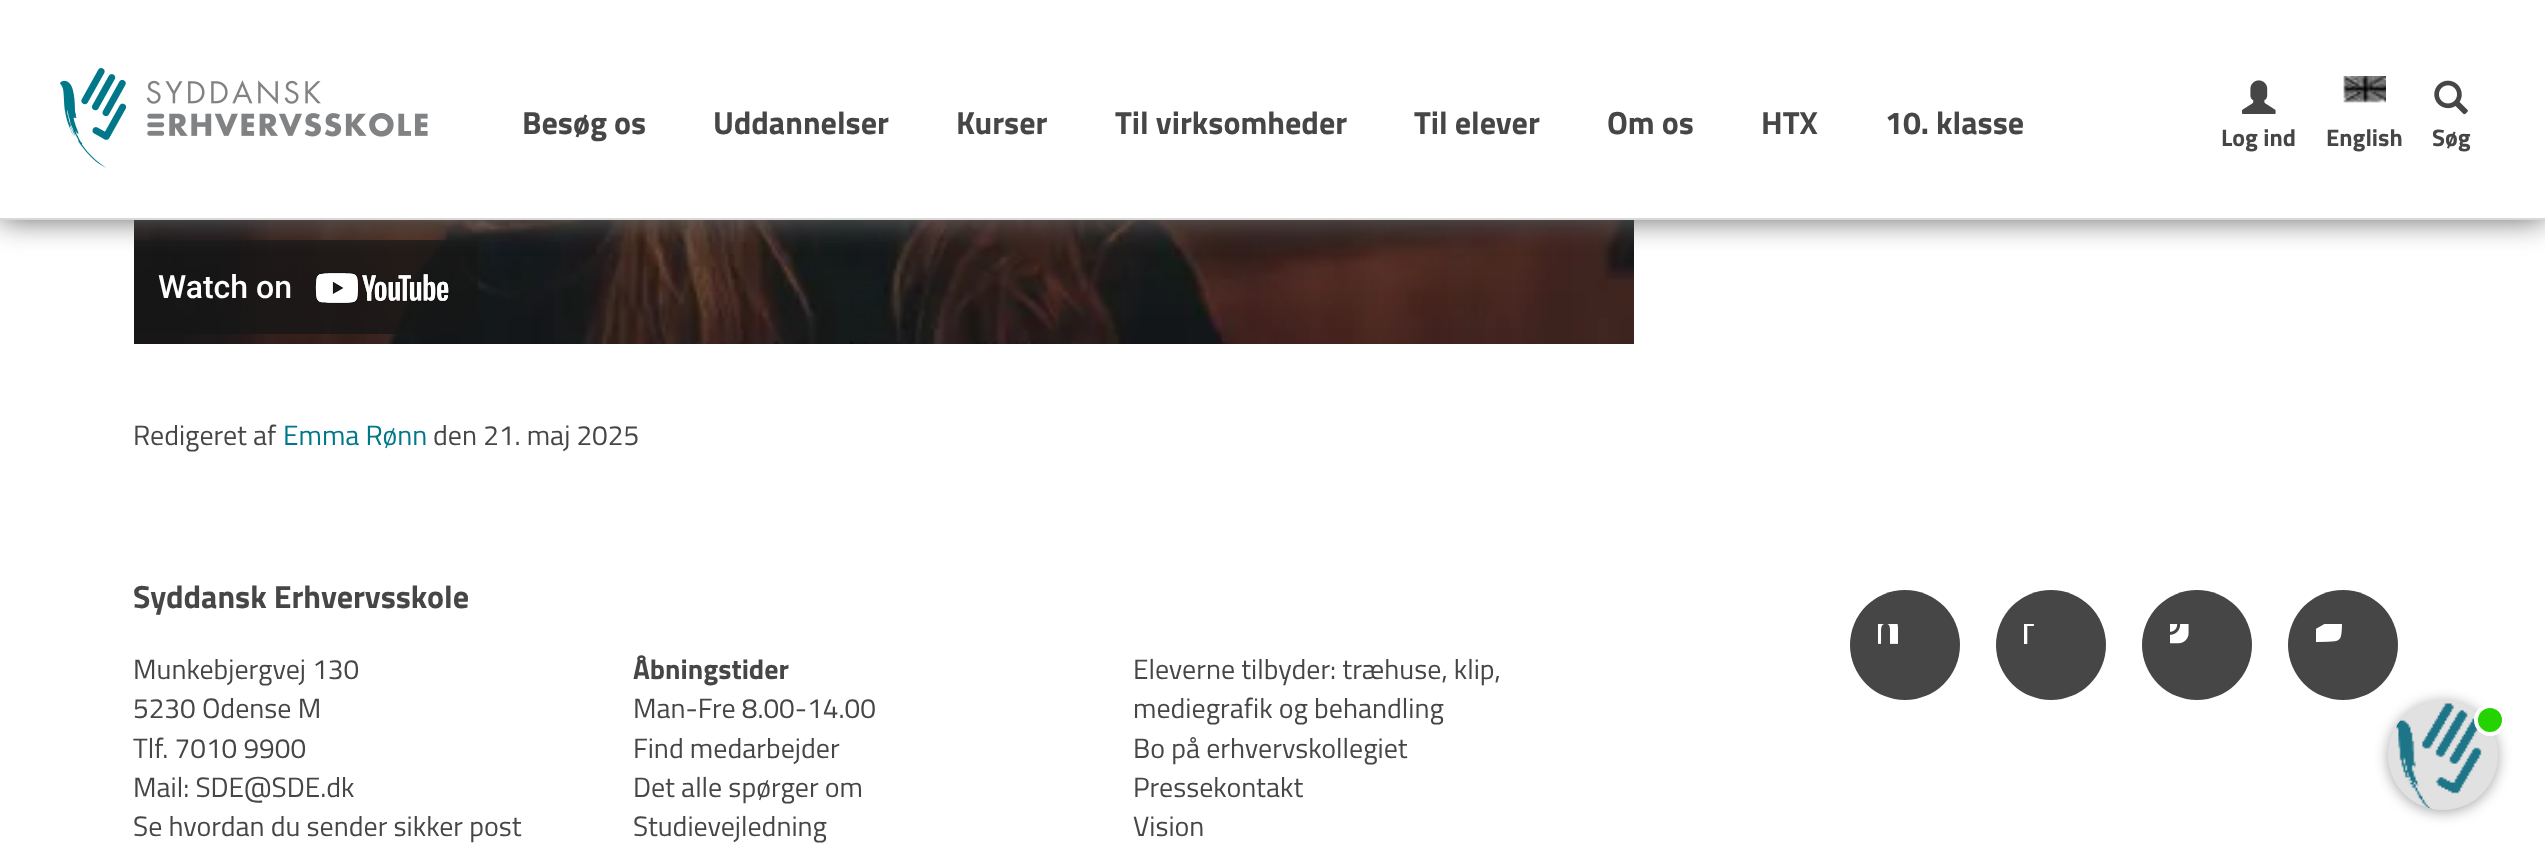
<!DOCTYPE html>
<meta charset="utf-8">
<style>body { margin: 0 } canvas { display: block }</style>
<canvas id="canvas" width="2545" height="850"></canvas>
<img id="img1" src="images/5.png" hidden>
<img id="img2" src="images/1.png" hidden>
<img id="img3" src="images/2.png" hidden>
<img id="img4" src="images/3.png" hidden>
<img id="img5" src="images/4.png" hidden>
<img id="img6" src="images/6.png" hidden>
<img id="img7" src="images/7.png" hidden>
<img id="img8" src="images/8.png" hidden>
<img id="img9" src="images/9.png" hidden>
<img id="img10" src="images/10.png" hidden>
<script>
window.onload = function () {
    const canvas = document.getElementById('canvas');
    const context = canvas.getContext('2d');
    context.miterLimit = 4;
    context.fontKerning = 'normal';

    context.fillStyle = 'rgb(255, 255, 255)';
    context.fillRect(0, 0, 2545, 850);
    context.drawImage(document.getElementById('img1'), 134, 220, 1500, 124);
    context.fillStyle = 'rgb(100, 100, 100)';
    context.filter = 'blur(15px)';
    context.beginPath();
    context.rect(0, 0, 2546, 220);
    context.fill();
    context.filter = 'none';
    context.fillStyle = 'rgb(255, 255, 255)';
    context.fillRect(0, 0, 2545, 218);
    context.fillStyle = 'rgb(216, 216, 216)';
    context.fillRect(0, 218, 2545, 2);
    context.drawImage(document.getElementById('img2'), 60, 68, 368, 100);
    context.drawImage(document.getElementById('img3'), 2242, 80, 34, 34);
    context.drawImage(document.getElementById('img4'), 2343, 76, 43, 27);
    context.drawImage(document.getElementById('img5'), 2434, 80, 34, 35);
    context.fillStyle = 'rgb(70, 70, 70)';
    context.beginPath();
    context.arc(1905, 645, 55, 0, 2 * Math.PI);
    context.fill();
    context.drawImage(document.getElementById('img6'), 1878, 624, 20, 20);
    context.beginPath();
    context.arc(2051, 645, 55, 0, 2 * Math.PI);
    context.fill();
    context.drawImage(document.getElementById('img7'), 2024, 624, 10, 20);
    context.beginPath();
    context.arc(2197, 645, 55, 0, 2 * Math.PI);
    context.fill();
    context.drawImage(document.getElementById('img8'), 2170, 624, 19, 20);
    context.beginPath();
    context.arc(2343, 645, 55, 0, 2 * Math.PI);
    context.fill();
    context.drawImage(document.getElementById('img9'), 2316, 624, 26, 18);
    context.fillStyle = 'rgba(0, 0, 0, 0.35)';
    context.filter = 'blur(7px)';
    context.beginPath();
    context.roundRect(2388, 702, 110, 110, 55);
    context.fill();
    context.filter = 'none';
    context.fillStyle = 'rgb(225, 225, 225)';
    context.beginPath();
    context.arc(2443, 755, 55, 0, 2 * Math.PI);
    context.fill();
    context.drawImage(document.getElementById('img10'), 2396, 703, 86, 106);
    context.fillStyle = 'rgb(37, 211, 0)';
    context.beginPath();
    context.arc(2490, 720, 14, 0, 2 * Math.PI);
    context.fill();
    context.strokeStyle = 'rgb(255, 255, 255)';
    context.lineWidth = 4;
    context.stroke();
    context.font = 'bold 32px Titillium Web';
    context.fillStyle = 'rgb(70, 70, 70)';
    context.fillText('Besøg os', 522, 134);
    context.fillText('Uddannelser', 713, 134);
    context.fillText('Kurser', 956, 134);
    context.fillText('Til virksomheder', 1115, 134);
    context.fillText('Til elever', 1414, 134);
    context.fillText('Om os', 1607, 134);
    context.fillText('HTX', 1761, 134);
    context.fillText('10. klasse', 1885, 134);
    context.font = 'bold 24px Titillium Web';
    context.fillText('Log ind', 2221, 146);
    context.fillText('English', 2326, 146);
    context.fillText('Søg', 2432, 146);
    context.font = '28px Titillium Web';
    context.fillText('Redigeret af', 133, 445);
    context.fillStyle = 'rgb(0, 120, 138)';
    context.fillText('Emma Rønn', 283, 445);
    context.fillStyle = 'rgb(70, 70, 70)';
    context.fillText('den 21. maj 2025', 433, 445);
    context.font = 'bold 32px Titillium Web';
    context.fillText('Syddansk Erhvervsskole', 133, 608);
    context.font = '28px Titillium Web';
    context.fillText('Munkebjergvej 130', 133, 679);
    context.fillText('5230 Odense M', 133, 718);
    context.fillText('Tlf. 7010 9900', 133, 758);
    context.fillText('Mail: SDE@SDE.dk', 133, 797);
    context.fillText('Se hvordan du sender sikker post', 133, 836);
    context.font = 'bold 28px Titillium Web';
    context.fillText('Åbningstider', 633, 679);
    context.font = '28px Titillium Web';
    context.fillText('Man-Fre 8.00-14.00', 633, 718);
    context.fillText('Find medarbejder', 633, 758);
    context.fillText('Det alle spørger om', 633, 797);
    context.fillText('Studievejledning', 633, 836);
    context.fillText('Eleverne tilbyder: træhuse, klip,', 1133, 679);
    context.fillText('mediegrafik og behandling', 1133, 718);
    context.fillText('Bo på erhvervskollegiet', 1133, 758);
    context.fillText('Pressekontakt', 1133, 797);
    context.fillText('Vision', 1133, 836);
};
</script>
